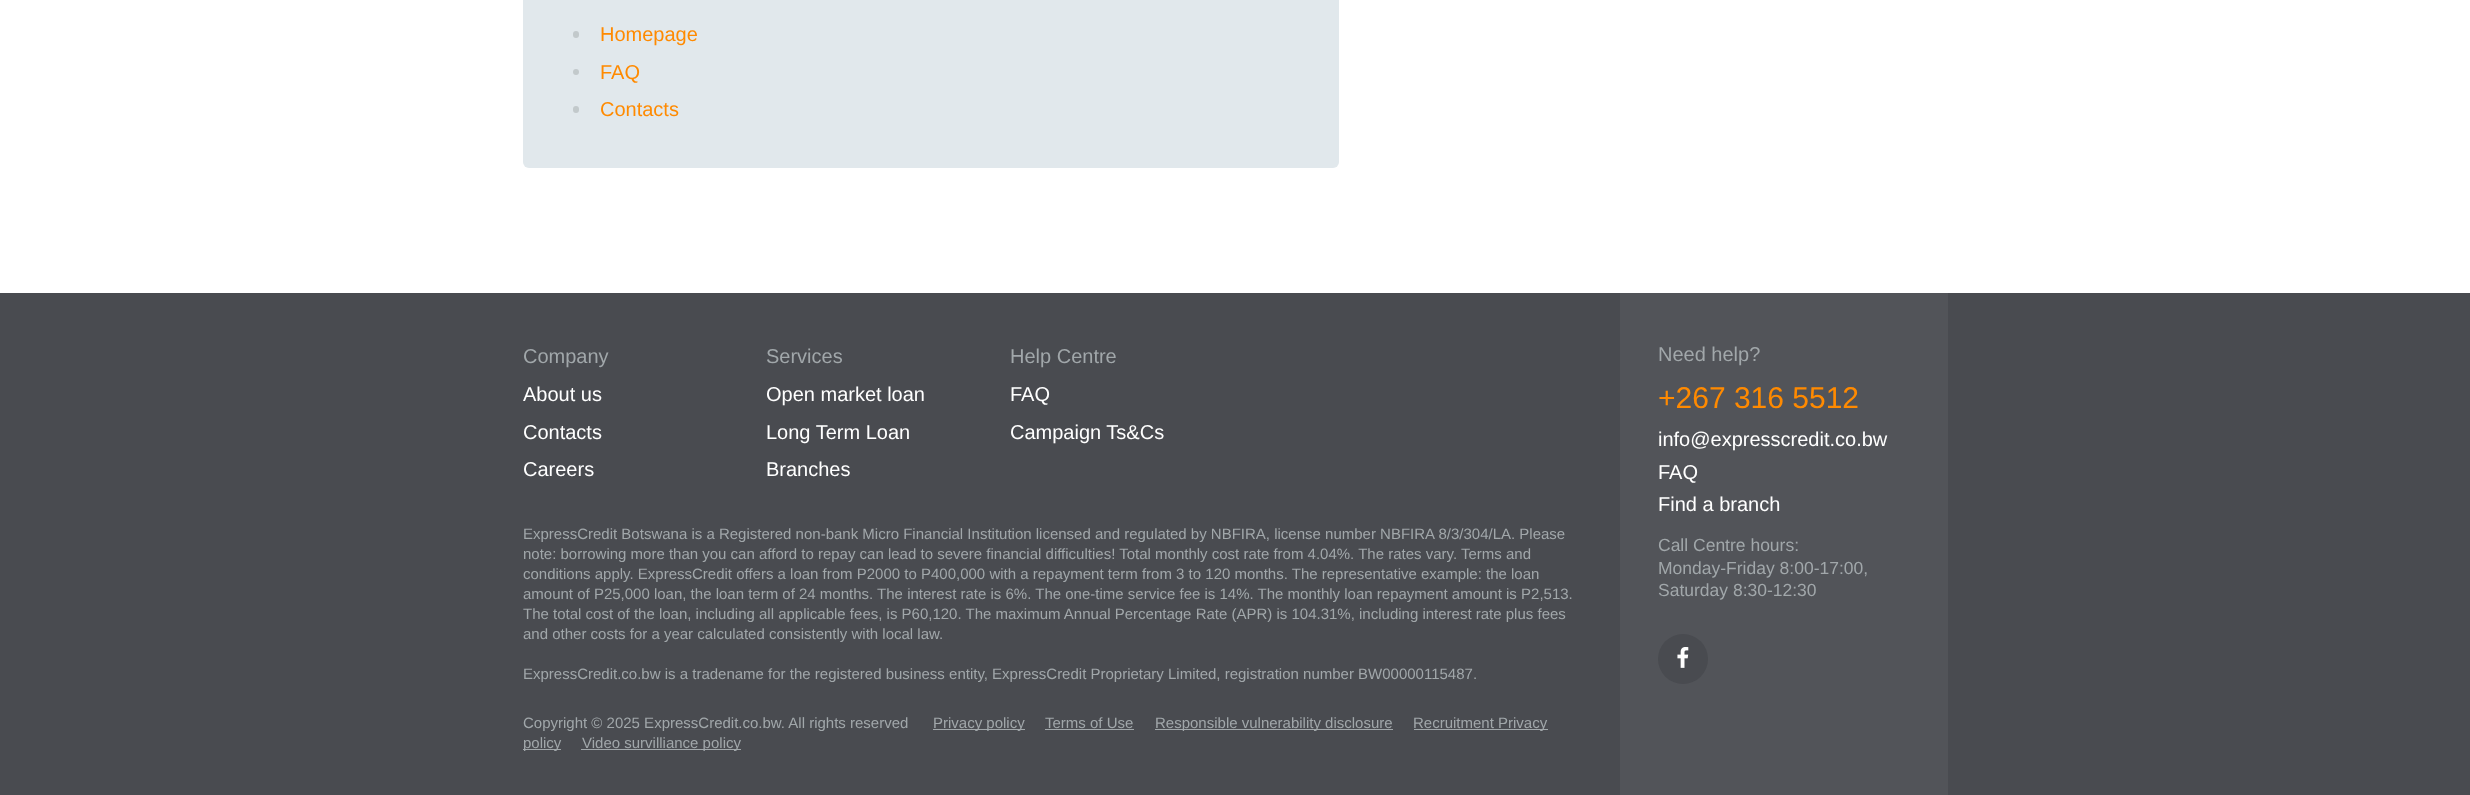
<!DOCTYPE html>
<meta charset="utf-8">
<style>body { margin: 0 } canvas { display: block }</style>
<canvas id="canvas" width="2470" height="795"></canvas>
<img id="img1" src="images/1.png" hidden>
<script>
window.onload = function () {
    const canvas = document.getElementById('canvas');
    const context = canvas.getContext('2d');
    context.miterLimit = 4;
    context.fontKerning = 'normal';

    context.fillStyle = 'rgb(255, 255, 255)';
    context.fillRect(0, 0, 2470, 795);
    context.fillStyle = 'rgb(225, 232, 236)';
    context.beginPath();
    context.roundRect(523, -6, 816, 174, 6);
    context.fill();
    context.fillStyle = 'rgb(194, 201, 203)';
    context.beginPath();
    context.roundRect(573, 31, 6, 7, 3);
    context.fill();
    context.beginPath();
    context.arc(576, 72, 3, 0, 2 * Math.PI);
    context.fill();
    context.beginPath();
    context.roundRect(573, 106, 6, 7, 3);
    context.fill();
    context.fillStyle = 'rgb(73, 75, 80)';
    context.fillRect(0, 293, 2470, 502);
    context.fillStyle = 'rgb(82, 84, 89)';
    context.fillRect(1620, 293, 328, 502);
    context.fillStyle = 'rgb(161, 167, 170)';
    context.fillRect(933, 729, 92, 1);
    context.fillRect(1045, 729, 89, 1);
    context.fillRect(1155, 729, 238, 1);
    context.fillRect(1414, 729, 134, 1);
    context.fillRect(523, 749, 38, 1);
    context.fillRect(581, 749, 160, 1);
    context.fillStyle = 'rgb(73, 75, 80)';
    context.beginPath();
    context.arc(1683, 659, 25, 0, 2 * Math.PI);
    context.fill();
    context.drawImage(document.getElementById('img1'), 1677, 647, 12, 21);
    context.font = '20px Liberation Sans';
    context.fillStyle = 'rgb(255, 138, 0)';
    context.fillText('Homepage', 600, 41);
    context.fillText('FAQ', 600, 79);
    context.fillText('Contacts', 600, 116);
    context.fillStyle = 'rgb(161, 167, 170)';
    context.fillText('Company', 523, 363);
    context.fillStyle = 'rgb(255, 255, 255)';
    context.fillText('About us', 523, 401);
    context.fillText('Contacts', 523, 439);
    context.fillText('Careers', 523, 476);
    context.fillStyle = 'rgb(161, 167, 170)';
    context.fillText('Services', 766, 363);
    context.fillStyle = 'rgb(255, 255, 255)';
    context.fillText('Open market loan', 766, 401);
    context.fillText('Long Term Loan', 766, 439);
    context.fillText('Branches', 766, 476);
    context.fillStyle = 'rgb(161, 167, 170)';
    context.fillText('Help Centre', 1010, 363);
    context.fillStyle = 'rgb(255, 255, 255)';
    context.fillText('FAQ', 1010, 401);
    context.fillText('Campaign Ts&Cs', 1010, 439);
    context.font = '15px Liberation Sans';
    context.fillStyle = 'rgb(161, 167, 170)';
    context.fillText('ExpressCredit Botswana is a Registered non-bank Micro Financial Institution licensed and regulated by NBFIRA, license number NBFIRA 8/3/304/LA. Please', 523, 539);
    context.fillText('note: borrowing more than you can afford to repay can lead to severe financial difficulties! Total monthly cost rate from 4.04%. The rates vary. Terms and', 523, 559);
    context.fillText('conditions apply. ExpressCredit offers a loan from P2000 to P400,000 with a repayment term from 3 to 120 months. The representative example: the loan', 523, 579);
    context.fillText('amount of P25,000 loan, the loan term of 24 months. The interest rate is 6%. The one-time service fee is 14%. The monthly loan repayment amount is P2,513.', 523, 599);
    context.fillText('The total cost of the loan, including all applicable fees, is P60,120. The maximum Annual Percentage Rate (APR) is 104.31%, including interest rate plus fees', 523, 619);
    context.fillText('and other costs for a year calculated consistently with local law.', 523, 639);
    context.fillText('ExpressCredit.co.bw is a tradename for the registered business entity, ExpressCredit Proprietary Limited, registration number BW00000115487.', 523, 679);
    context.fillText('Copyright © 2025 ExpressCredit.co.bw. All rights reserved', 523, 728);
    context.fillText('Privacy policy', 933, 728);
    context.fillText('Terms of Use', 1045, 728);
    context.fillText('Responsible vulnerability disclosure', 1155, 728);
    context.fillText('Recruitment Privacy', 1413, 728);
    context.fillText('policy', 523, 748);
    context.fillText('Video survilliance policy', 582, 748);
    context.font = '20px Liberation Sans';
    context.fillText('Need help?', 1658, 361);
    context.font = '30px Liberation Sans';
    context.fillStyle = 'rgb(255, 138, 0)';
    context.fillText('+267 316 5512', 1658, 408);
    context.font = '20px Liberation Sans';
    context.fillStyle = 'rgb(255, 255, 255)';
    context.fillText('info@expresscredit.co.bw', 1658, 446);
    context.fillText('FAQ', 1658, 479);
    context.fillText('Find a branch', 1658, 511);
    context.font = '17.5px Liberation Sans';
    context.fillStyle = 'rgb(161, 167, 170)';
    context.fillText('Call Centre hours:', 1658, 551);
    context.fillText('Monday-Friday 8:00-17:00,', 1658, 574);
    context.fillText('Saturday 8:30-12:30', 1658, 596);
};
</script>
